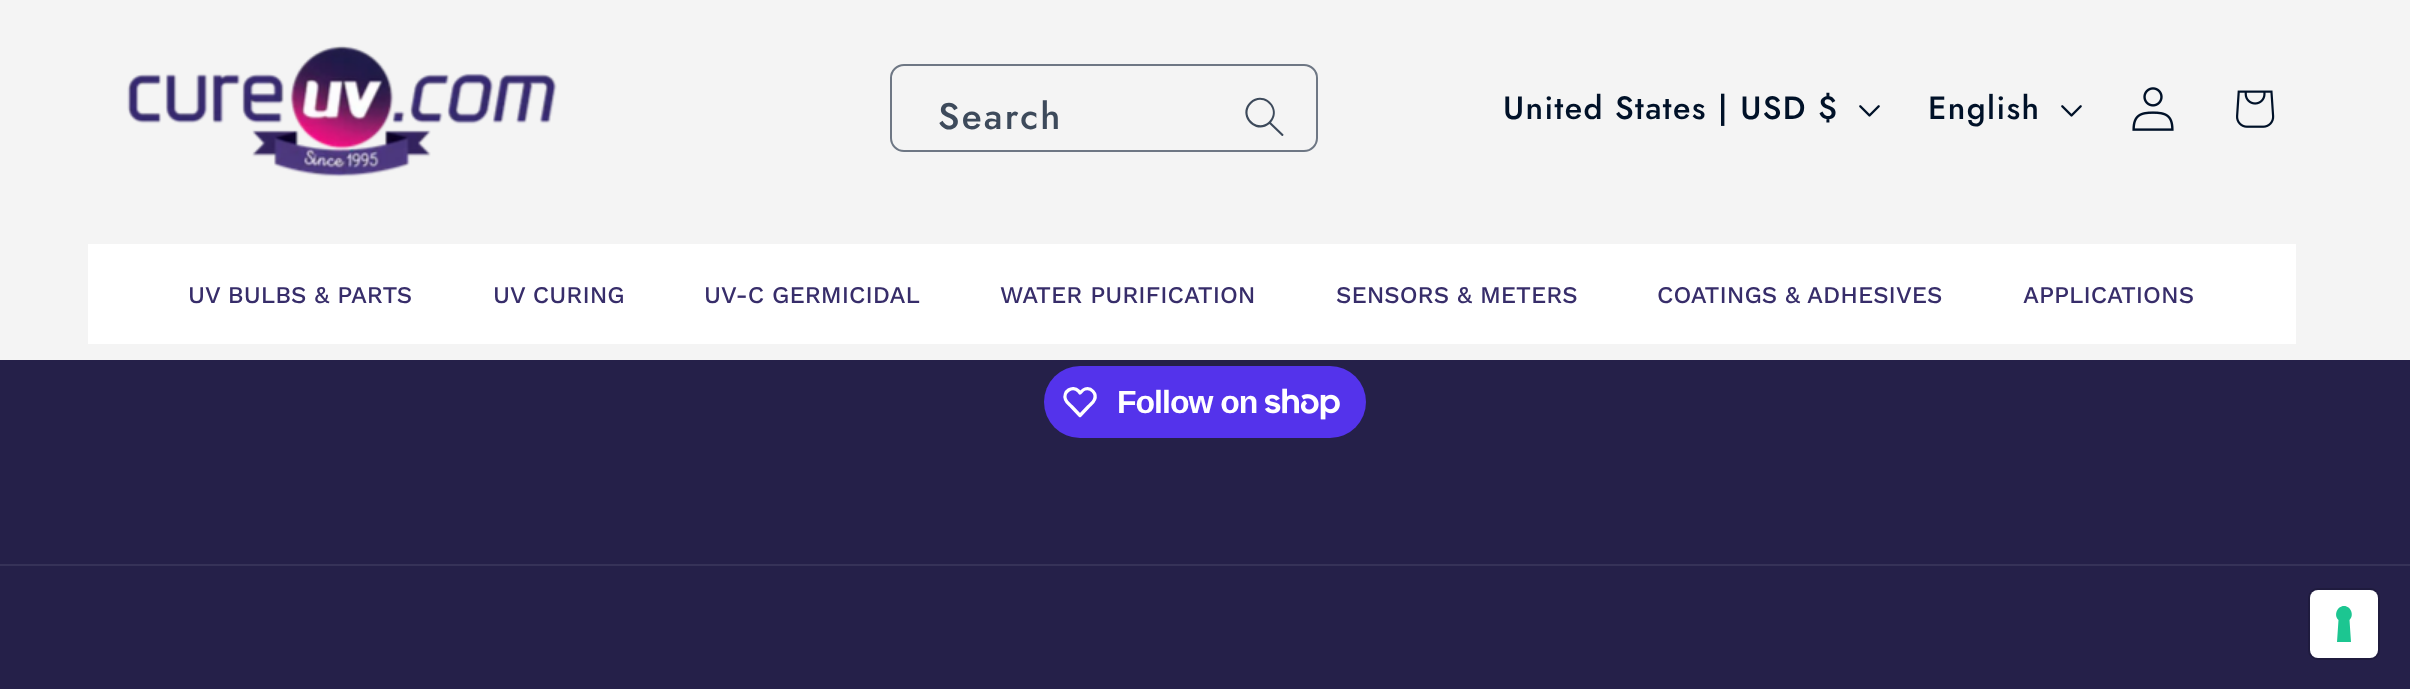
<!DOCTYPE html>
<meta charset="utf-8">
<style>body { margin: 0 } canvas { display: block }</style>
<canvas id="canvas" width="2410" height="689"></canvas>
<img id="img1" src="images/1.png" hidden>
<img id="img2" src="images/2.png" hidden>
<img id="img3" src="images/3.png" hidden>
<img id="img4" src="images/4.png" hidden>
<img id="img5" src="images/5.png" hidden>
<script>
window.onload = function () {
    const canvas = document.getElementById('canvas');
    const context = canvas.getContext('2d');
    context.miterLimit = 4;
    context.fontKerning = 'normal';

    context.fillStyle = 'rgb(37, 32, 73)';
    context.fillRect(0, 0, 2410, 689);
    context.fillStyle = 'rgb(244, 244, 244)';
    context.fillRect(0, 0, 2410, 360);
    context.drawImage(document.getElementById('img1'), 127, 45, 430, 132);
    context.fillStyle = 'rgb(61, 74, 91)';
    context.beginPath();
    context.moveTo(1269, 121.5);
    context.bezierCurveTo(1257.5, 133, 1239.5, 115.5, 1251.5, 103.5);
    context.bezierCurveTo(1263, 92, 1281, 109.5, 1269, 121.5);
    context.moveTo(1269.5, 124);
    context.bezierCurveTo(1255.5, 136, 1236.5, 115, 1250, 102);
    context.bezierCurveTo(1263.5, 89, 1283.5, 108.5, 1271, 122.5);
    context.lineTo(1283.5, 134.5);
    context.bezierCurveTo(1283.5, 136, 1282, 136.5, 1281.5, 135.5);
    context.closePath();
    context.fill('evenodd');
    context.beginPath();
    context.roundRect(891, 65, 426, 86, 13);
    context.strokeStyle = 'rgb(110, 119, 132)';
    context.lineWidth = 2;
    context.stroke();
    context.drawImage(document.getElementById('img2'), 1859, 105, 21, 12);
    context.drawImage(document.getElementById('img2'), 2061, 105, 21, 12);
    context.drawImage(document.getElementById('img3'), 2132, 87, 42, 44);
    context.drawImage(document.getElementById('img4'), 2236, 90, 39, 38);
    context.fillStyle = 'rgb(255, 255, 255)';
    context.fillRect(88, 244, 2208, 100);
    context.fillStyle = 'rgb(84, 51, 235)';
    context.beginPath();
    context.roundRect(1044, 366, 322, 72, 36);
    context.fill();
    context.beginPath();
    context.moveTo(1078.5, 391);
    context.lineTo(1080, 393);
    context.bezierCurveTo(1081.5, 391.5, 1083, 389.5, 1085, 389);
    context.bezierCurveTo(1091, 387, 1097, 393.5, 1094.5, 399.5);
    context.bezierCurveTo(1093.5, 402.5, 1090.5, 404.5, 1088.5, 406.5);
    context.lineTo(1080, 415.5);
    context.lineTo(1071.5, 406.5);
    context.bezierCurveTo(1069.5, 404.5, 1066.5, 402.5, 1065.5, 399.5);
    context.bezierCurveTo(1062.5, 391.5, 1072.5, 385, 1078.5, 391);
    context.closePath();
    context.strokeStyle = 'rgb(255, 255, 255)';
    context.lineWidth = 3.3;
    context.lineJoin = 'round';
    context.stroke();
    context.drawImage(document.getElementById('img5'), 1265, 388, 75, 32);
    context.fillStyle = 'rgb(54, 50, 88)';
    context.fillRect(0, 564, 2410, 2);
    context.beginPath();
    context.roundRect(2309, 589, 70, 70, 9);
    context.strokeStyle = 'rgb(31, 27, 62)';
    context.lineWidth = 2;
    context.lineJoin = 'miter';
    context.stroke();
    context.fillStyle = 'rgb(255, 255, 255)';
    context.beginPath();
    context.roundRect(2310, 590, 68, 68, 8);
    context.fill();
    context.fillStyle = 'rgb(28, 198, 145)';
    context.beginPath();
    context.moveTo(2344, 606);
    context.bezierCurveTo(2351, 606, 2354.5, 615.5, 2349.5, 620);
    context.lineTo(2351, 642);
    context.lineTo(2337, 642);
    context.lineTo(2338.5, 620);
    context.bezierCurveTo(2333.5, 615.5, 2337, 606, 2344, 606);
    context.closePath();
    context.fill('evenodd');
    context.letterSpacing = '2.25px';
    context.font = '500 37px Jost';
    context.fillStyle = 'rgb(61, 74, 91)';
    context.fillText('Search', 938, 129);
    context.letterSpacing = '1.4px';
    context.font = '500 32.25px Jost';
    context.fillStyle = 'rgb(0, 17, 40)';
    context.fillText('United States | USD $', 1503, 119);
    context.fillText('English', 1928, 119);
    context.letterSpacing = '0px';
    context.font = '500 24px Work Sans';
    context.fillStyle = 'rgb(55, 45, 106)';
    context.fillText('UV BULBS & PARTS', 188, 303);
    context.fillText('UV CURING', 493, 303);
    context.fillText('UV-C GERMICIDAL', 704, 303);
    context.fillText('WATER PURIFICATION', 1000, 303);
    context.fillText('SENSORS & METERS', 1336, 303);
    context.fillText('COATINGS & ADHESIVES', 1657, 303);
    context.fillText('APPLICATIONS', 2023, 303);
    context.letterSpacing = '-1px';
    context.font = 'bold 32px Liberation Sans';
    context.fillStyle = 'rgb(255, 255, 255)';
    context.fillText('Follow on', 1117, 413);
};
</script>
